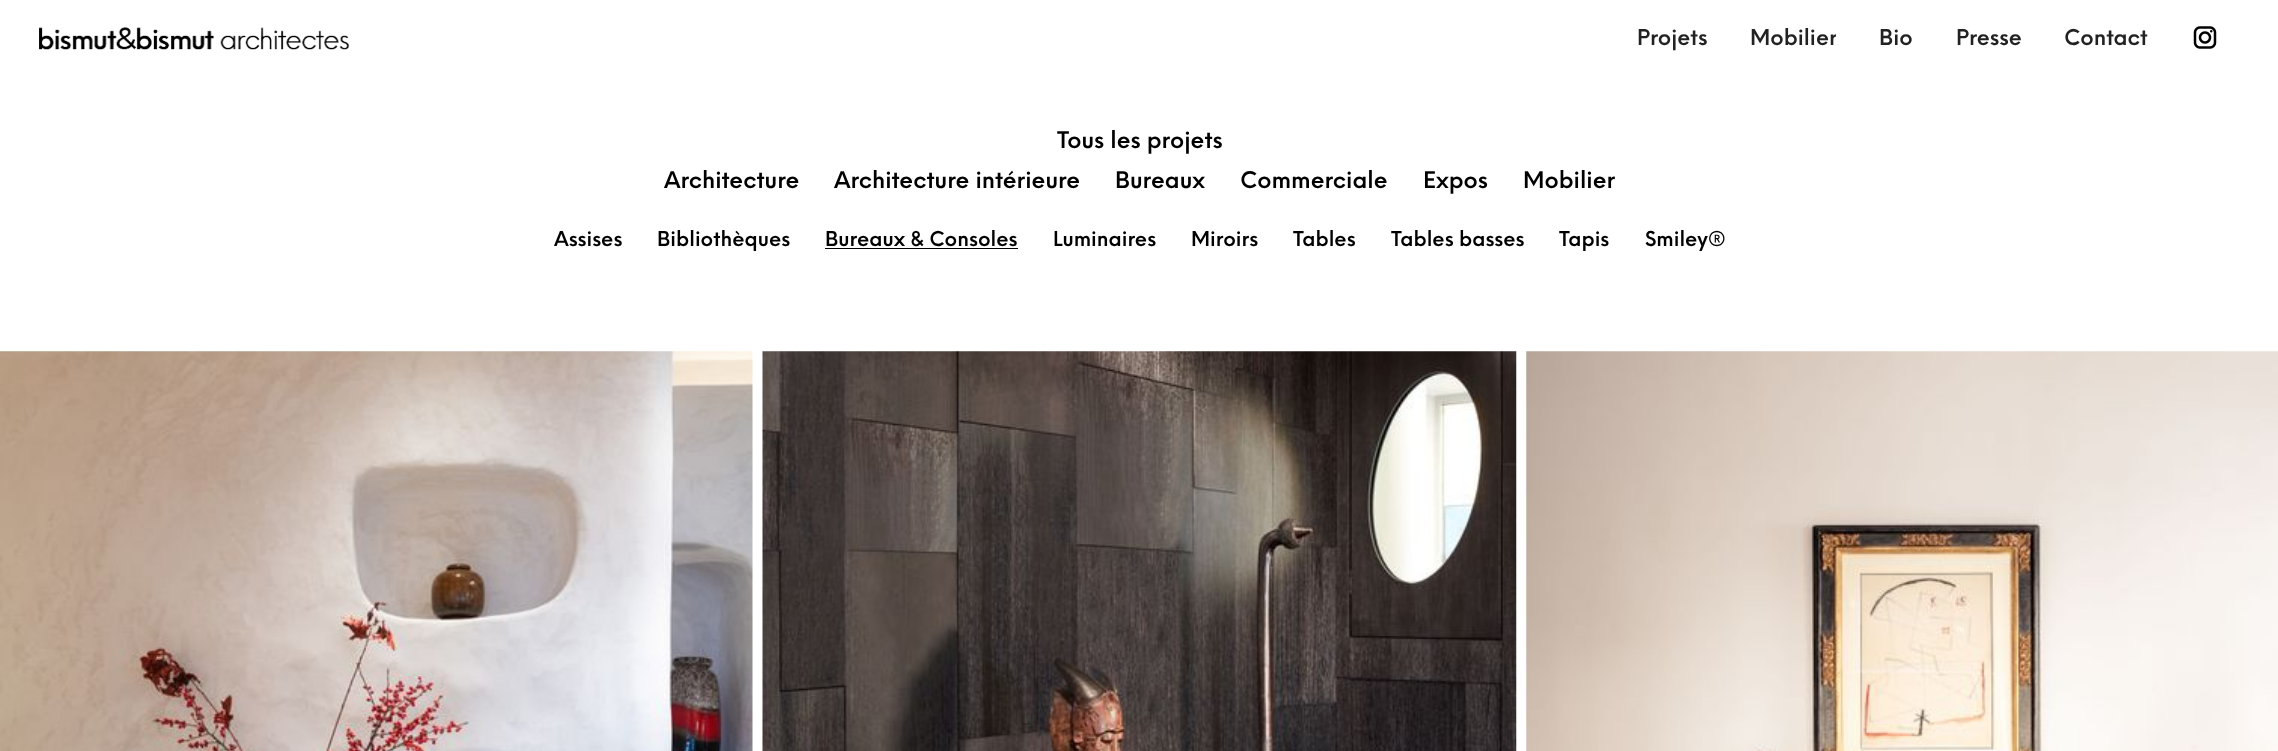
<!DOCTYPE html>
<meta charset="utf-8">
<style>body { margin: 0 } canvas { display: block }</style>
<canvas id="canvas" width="2278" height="751"></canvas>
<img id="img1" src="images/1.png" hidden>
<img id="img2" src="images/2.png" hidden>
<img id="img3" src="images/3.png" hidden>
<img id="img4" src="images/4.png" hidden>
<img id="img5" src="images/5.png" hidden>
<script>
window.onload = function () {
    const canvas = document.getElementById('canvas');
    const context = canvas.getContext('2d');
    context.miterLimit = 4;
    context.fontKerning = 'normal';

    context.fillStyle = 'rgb(255, 255, 255)';
    context.fillRect(0, 0, 2278, 751);
    context.drawImage(document.getElementById('img1'), 39, 27, 311, 23);
    context.drawImage(document.getElementById('img2'), 2193, 26, 24, 23);
    context.fillStyle = 'rgb(0, 0, 0)';
    context.fillRect(825, 248, 193, 1);
    context.drawImage(document.getElementById('img3'), 0, 351, 753, 400);
    context.drawImage(document.getElementById('img4'), 762, 351, 755, 400);
    context.drawImage(document.getElementById('img5'), 1526, 351, 752, 400);
    context.font = '600 21.25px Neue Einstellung';
    context.fillStyle = 'rgb(34, 34, 34)';
    context.fillText('Projets', 1637, 45);
    context.save();
    context.beginPath();
    context.rect(1750, 13, 86, 52);
    context.clip();
    context.fillText('Mobilier', 1750, 45);
    context.restore();
    context.fillText('Bio', 1879, 45);
    context.fillText('Presse', 1956, 45);
    context.fillText('Contact', 2064, 45);
    context.font = '600 22.5px Neue Einstellung';
    context.fillStyle = 'rgb(0, 0, 0)';
    context.fillText('Tous les projets', 1057, 148);
    context.fillText('Architecture', 664, 188);
    context.fillText('Architecture intérieure', 834, 188);
    context.fillText('Bureaux', 1115, 188);
    context.fillText('Commerciale', 1240, 188);
    context.fillText('Expos', 1423, 188);
    context.fillText('Mobilier', 1523, 188);
    context.font = '600 20px Neue Einstellung';
    context.fillText('Assises', 554, 246);
    context.fillText('Bibliothèques', 657, 246);
    context.fillText('Bureaux & Consoles', 825, 246);
    context.fillText('Luminaires', 1053, 246);
    context.fillText('Miroirs', 1191, 246);
    context.fillText('Tables', 1293, 246);
    context.fillText('Tables basses', 1391, 246);
    context.fillText('Tapis', 1559, 246);
    context.fillText('Smiley®', 1645, 246);
};
</script>
